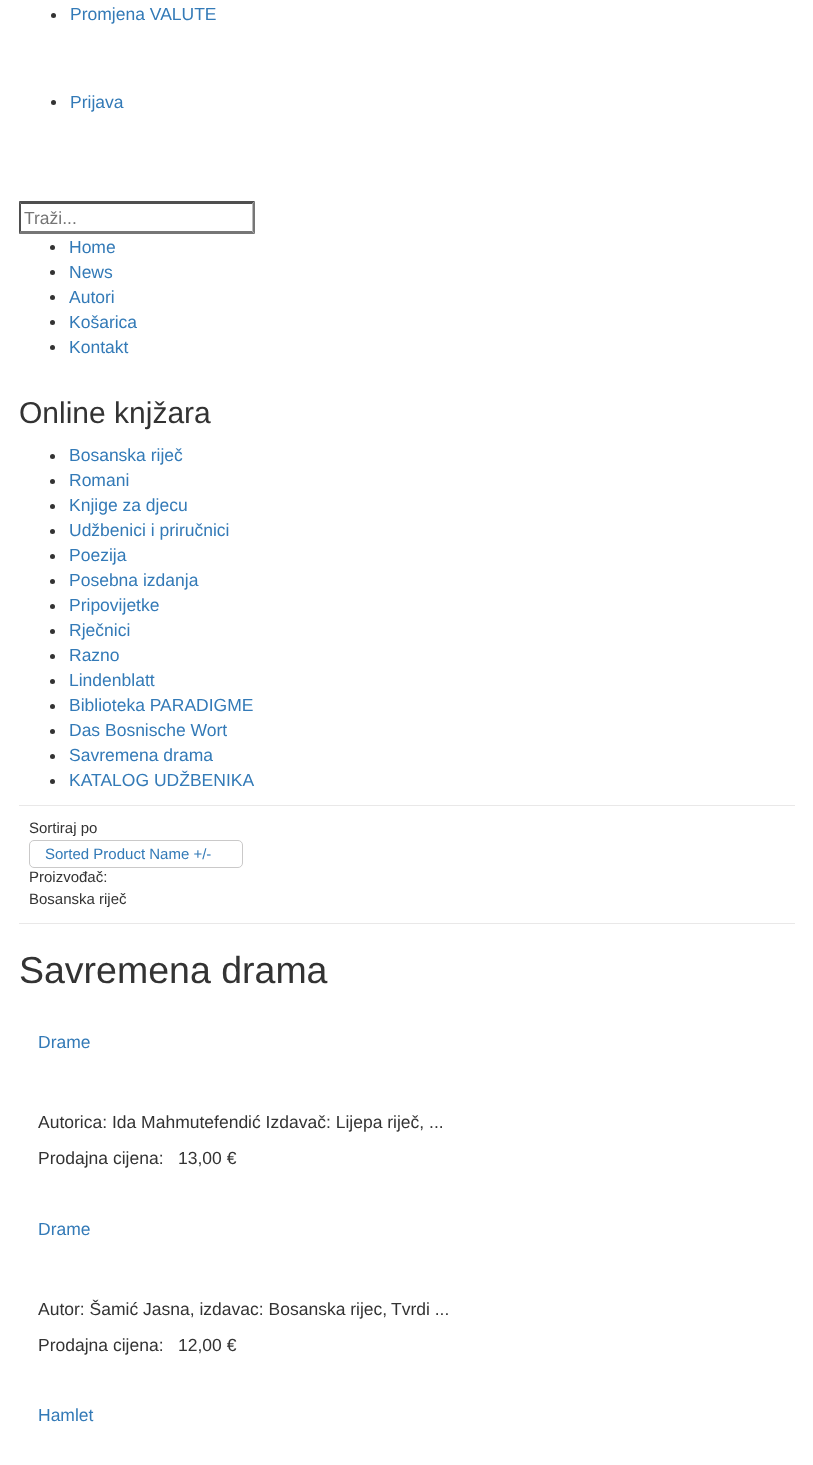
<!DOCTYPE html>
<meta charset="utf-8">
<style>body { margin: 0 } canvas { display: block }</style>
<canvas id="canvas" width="813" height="1465"></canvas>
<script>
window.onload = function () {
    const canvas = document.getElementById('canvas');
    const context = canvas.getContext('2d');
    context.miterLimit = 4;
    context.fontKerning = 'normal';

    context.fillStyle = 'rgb(255, 255, 255)';
    context.fillRect(0, 0, 813, 1465);
    context.fillStyle = 'rgb(51, 51, 51)';
    context.beginPath();
    context.arc(53.5, 15.5, 2.5, 0, 2 * Math.PI);
    context.fill();
    context.beginPath();
    context.arc(53.5, 102.5, 2.5, 0, 2 * Math.PI);
    context.fill();
    context.fillStyle = 'rgb(79, 79, 79)';
    context.beginPath();
    context.moveTo(19, 201);
    context.lineTo(255, 201);
    context.lineTo(252, 204);
    context.lineTo(21, 204);
    context.closePath();
    context.fill();
    context.fillStyle = 'rgb(118, 118, 118)';
    context.beginPath();
    context.moveTo(255, 201);
    context.lineTo(255, 234);
    context.lineTo(252.5, 231);
    context.lineTo(252.5, 204);
    context.closePath();
    context.fill();
    context.beginPath();
    context.moveTo(255, 234);
    context.lineTo(19, 234);
    context.lineTo(21, 231);
    context.lineTo(252, 231);
    context.closePath();
    context.fill();
    context.fillStyle = 'rgb(79, 79, 79)';
    context.beginPath();
    context.moveTo(19, 234);
    context.lineTo(19, 201);
    context.lineTo(21, 204);
    context.lineTo(21, 231);
    context.closePath();
    context.fill();
    context.fillStyle = 'rgb(51, 51, 51)';
    context.beginPath();
    context.arc(52.5, 247.5, 2.5, 0, 2 * Math.PI);
    context.fill();
    context.beginPath();
    context.arc(52.5, 272.5, 2.5, 0, 2 * Math.PI);
    context.fill();
    context.beginPath();
    context.arc(52.5, 297.5, 2.5, 0, 2 * Math.PI);
    context.fill();
    context.beginPath();
    context.arc(52.5, 322.5, 2.5, 0, 2 * Math.PI);
    context.fill();
    context.beginPath();
    context.arc(52.5, 347.5, 2.5, 0, 2 * Math.PI);
    context.fill();
    context.beginPath();
    context.arc(52.5, 456.5, 2.5, 0, 2 * Math.PI);
    context.fill();
    context.beginPath();
    context.arc(52.5, 481.5, 2.5, 0, 2 * Math.PI);
    context.fill();
    context.beginPath();
    context.arc(52.5, 506.5, 2.5, 0, 2 * Math.PI);
    context.fill();
    context.beginPath();
    context.arc(52.5, 531.5, 2.5, 0, 2 * Math.PI);
    context.fill();
    context.beginPath();
    context.arc(52.5, 556.5, 2.5, 0, 2 * Math.PI);
    context.fill();
    context.beginPath();
    context.arc(52.5, 581.5, 2.5, 0, 2 * Math.PI);
    context.fill();
    context.beginPath();
    context.arc(52.5, 606.5, 2.5, 0, 2 * Math.PI);
    context.fill();
    context.beginPath();
    context.arc(52.5, 631.5, 2.5, 0, 2 * Math.PI);
    context.fill();
    context.beginPath();
    context.arc(52.5, 656.5, 2.5, 0, 2 * Math.PI);
    context.fill();
    context.beginPath();
    context.arc(52.5, 681.5, 2.5, 0, 2 * Math.PI);
    context.fill();
    context.beginPath();
    context.arc(52.5, 706.5, 2.5, 0, 2 * Math.PI);
    context.fill();
    context.beginPath();
    context.arc(52.5, 731.5, 2.5, 0, 2 * Math.PI);
    context.fill();
    context.beginPath();
    context.arc(52.5, 756.5, 2.5, 0, 2 * Math.PI);
    context.fill();
    context.beginPath();
    context.arc(52.5, 781.5, 2.5, 0, 2 * Math.PI);
    context.fill();
    context.fillStyle = 'rgb(233, 232, 232)';
    context.fillRect(19, 805, 776, 1);
    context.fillRect(19, 923, 776, 1);
    context.beginPath();
    context.roundRect(29.5, 840.5, 213, 27, 4.5);
    context.strokeStyle = 'rgb(202, 201, 201)';
    context.stroke();
    context.font = '17.5px Liberation Sans';
    context.fillStyle = 'rgb(51, 122, 183)';
    context.fillText('Promjena VALUTE', 70, 20);
    context.fillText('Prijava', 70, 108);
    context.fillStyle = 'rgb(117, 117, 117)';
    context.fillText('Traži...', 24, 224);
    context.fillStyle = 'rgb(51, 122, 183)';
    context.fillText('Home', 69, 253);
    context.fillText('News', 69, 278);
    context.fillText('Autori', 69, 303);
    context.fillText('Košarica', 69, 328);
    context.fillText('Kontakt', 69, 353);
    context.font = '30px Liberation Sans';
    context.fillStyle = 'rgb(51, 51, 51)';
    context.fillText('Online knjžara', 19, 423);
    context.font = '17.5px Liberation Sans';
    context.fillStyle = 'rgb(51, 122, 183)';
    context.fillText('Bosanska riječ', 69, 461);
    context.fillText('Romani', 69, 486);
    context.fillText('Knjige za djecu', 69, 511);
    context.fillText('Udžbenici i priručnici', 69, 536);
    context.fillText('Poezija', 69, 561);
    context.fillText('Posebna izdanja', 69, 586);
    context.fillText('Pripovijetke', 69, 611);
    context.fillText('Rječnici', 69, 636);
    context.fillText('Razno', 69, 661);
    context.fillText('Lindenblatt', 69, 686);
    context.fillText('Biblioteka PARADIGME', 69, 711);
    context.fillText('Das Bosnische Wort', 69, 736);
    context.fillText('Savremena drama', 69, 761);
    context.fillText('KATALOG UDŽBENIKA', 69, 786);
    context.font = '15px Liberation Sans';
    context.fillStyle = 'rgb(51, 51, 51)';
    context.fillText('Sortiraj po', 29, 833);
    context.fillStyle = 'rgb(51, 122, 183)';
    context.fillText('Sorted Product Name +/-', 45, 859);
    context.fillStyle = 'rgb(51, 51, 51)';
    context.fillText('Proizvođač:', 29, 882);
    context.fillText('Bosanska riječ', 29, 904);
    context.font = '37.5px Liberation Sans';
    context.fillText('Savremena drama', 19, 983);
    context.font = '17.5px Liberation Sans';
    context.fillStyle = 'rgb(51, 122, 183)';
    context.fillText('Drame', 38, 1048);
    context.fillStyle = 'rgb(51, 51, 51)';
    context.fillText('Autorica: Ida Mahmutefendić Izdavač: Lijepa riječ, ...', 38, 1128);
    context.fillText('Prodajna cijena:', 38, 1164);
    context.fillText('13,00 €', 178, 1164);
    context.fillStyle = 'rgb(51, 122, 183)';
    context.fillText('Drame', 38, 1235);
    context.fillStyle = 'rgb(51, 51, 51)';
    context.fillText('Autor: Šamić Jasna, izdavac: Bosanska rijec,', 38, 1315);
    context.fillText('Tvrdi ...', 391, 1315);
    context.fillText('Prodajna cijena:', 38, 1351);
    context.fillText('12,00 €', 178, 1351);
    context.fillStyle = 'rgb(51, 122, 183)';
    context.fillText('Hamlet', 38, 1421);
};
</script>
